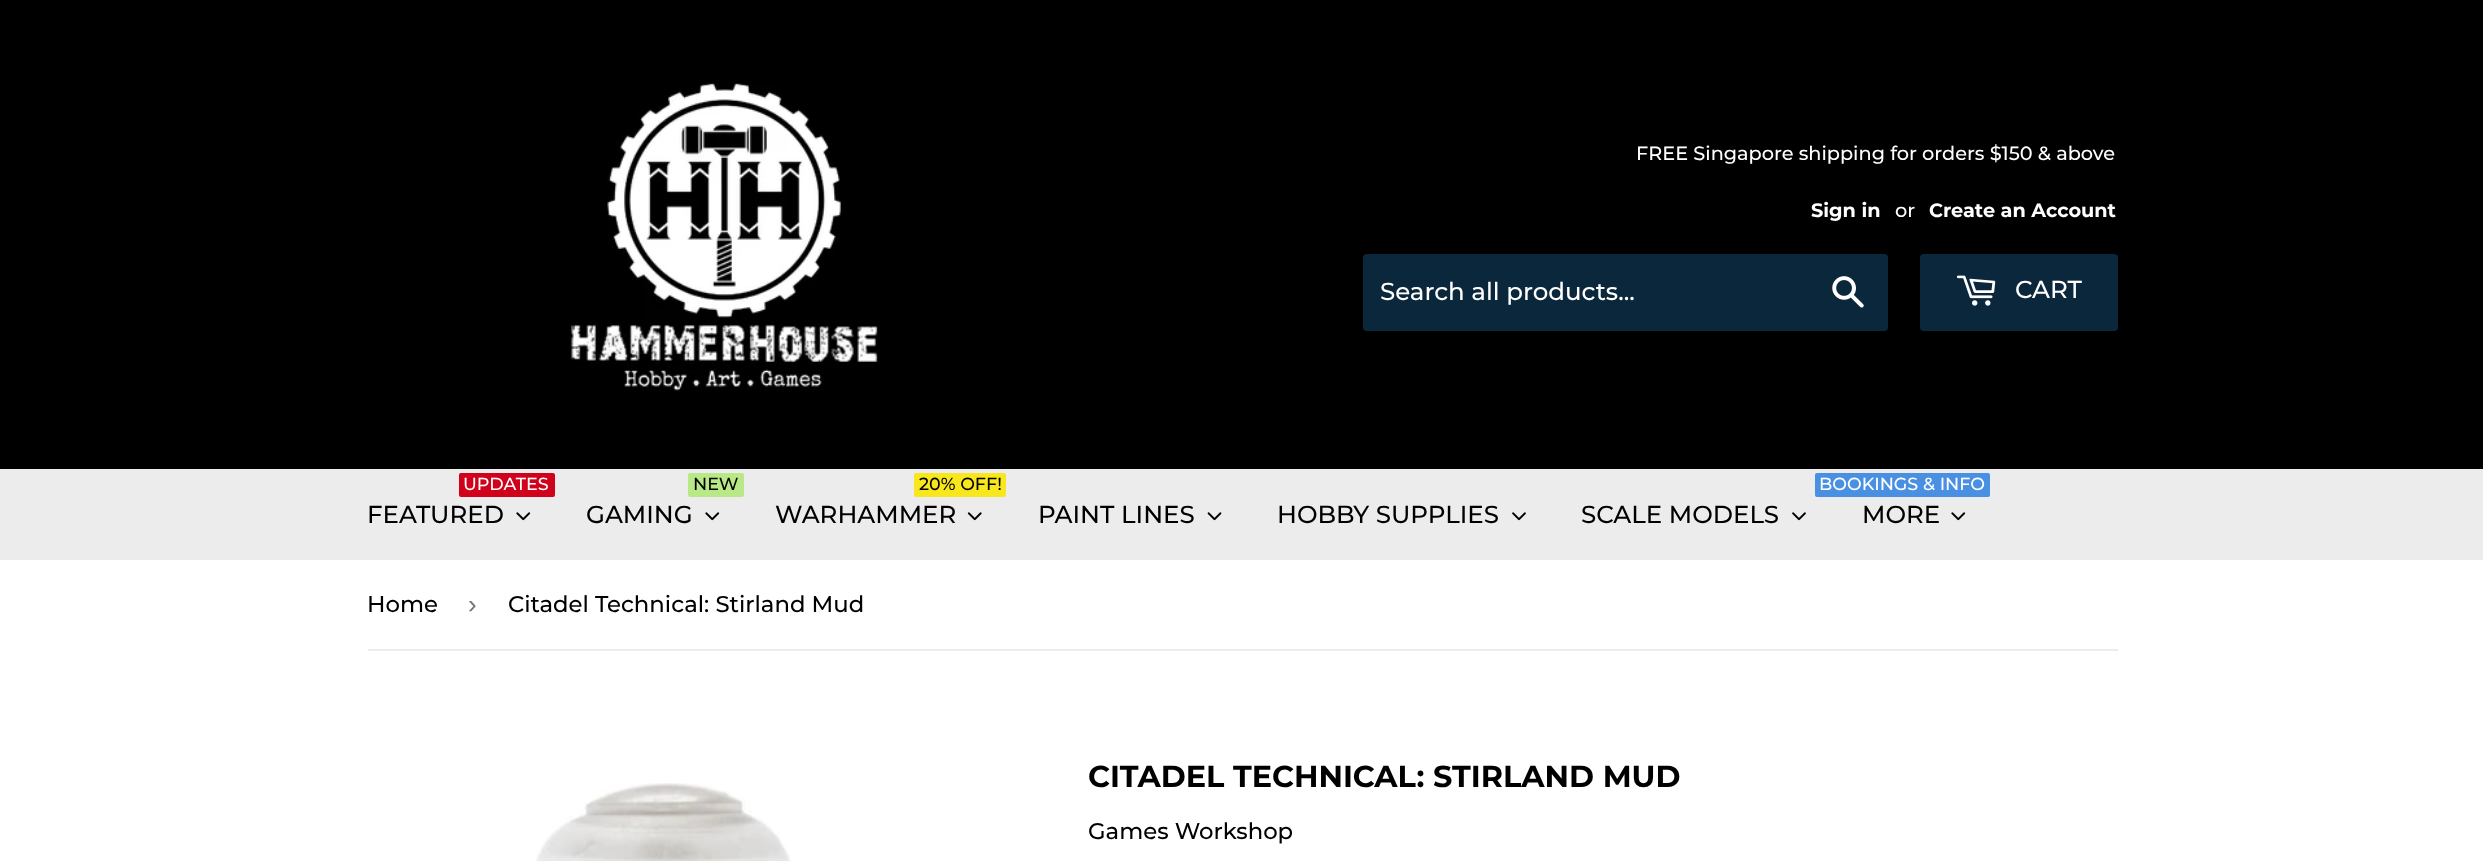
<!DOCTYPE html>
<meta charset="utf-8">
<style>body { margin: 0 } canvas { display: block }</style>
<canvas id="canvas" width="2483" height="861"></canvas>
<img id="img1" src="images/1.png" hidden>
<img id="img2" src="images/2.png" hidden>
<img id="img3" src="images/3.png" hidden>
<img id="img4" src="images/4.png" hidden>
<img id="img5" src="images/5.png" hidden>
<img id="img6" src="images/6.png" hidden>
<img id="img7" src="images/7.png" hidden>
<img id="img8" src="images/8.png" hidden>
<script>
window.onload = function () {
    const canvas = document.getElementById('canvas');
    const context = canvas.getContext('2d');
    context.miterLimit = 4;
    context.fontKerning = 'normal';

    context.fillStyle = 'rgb(255, 255, 255)';
    context.fillRect(0, 0, 2483, 861);
    context.fillStyle = 'rgb(0, 0, 0)';
    context.fillRect(0, 0, 2483, 469);
    context.drawImage(document.getElementById('img1'), 570, 83, 308, 308);
    context.fillStyle = 'rgb(11, 39, 59)';
    context.beginPath();
    context.roundRect(1363, 254, 525, 77, 4);
    context.fill();
    context.drawImage(document.getElementById('img2'), 1832, 276, 32, 32);
    context.beginPath();
    context.roundRect(1920, 254, 198, 77, 4);
    context.fill();
    context.drawImage(document.getElementById('img3'), 1956, 275, 40, 31);
    context.fillStyle = 'rgb(236, 236, 236)';
    context.fillRect(0, 469, 2483, 91);
    context.fillStyle = 'rgb(208, 2, 27)';
    context.beginPath();
    context.roundRect(459, 473, 96, 24, 2);
    context.fill();
    context.drawImage(document.getElementById('img4'), 516, 512, 15, 9);
    context.fillStyle = 'rgb(184, 233, 134)';
    context.beginPath();
    context.roundRect(688, 473, 56, 24, 2);
    context.fill();
    context.drawImage(document.getElementById('img4'), 705, 512, 15, 9);
    context.fillStyle = 'rgb(248, 231, 28)';
    context.beginPath();
    context.roundRect(914, 473, 92, 24, 2);
    context.fill();
    context.drawImage(document.getElementById('img5'), 967, 512, 15, 9);
    context.drawImage(document.getElementById('img6'), 1207, 512, 15, 9);
    context.drawImage(document.getElementById('img7'), 1512, 512, 14, 9);
    context.drawImage(document.getElementById('img7'), 1792, 512, 14, 9);
    context.fillStyle = 'rgb(74, 144, 226)';
    context.beginPath();
    context.roundRect(1815, 473, 175, 24, 2);
    context.fill();
    context.drawImage(document.getElementById('img4'), 1951, 512, 15, 9);
    context.fillStyle = 'rgb(236, 236, 236)';
    context.fillRect(368, 649, 1750, 2);
    context.drawImage(document.getElementById('img8'), 536, 783, 255, 78);
    context.font = '500 19.3px Montserrat';
    context.fillStyle = 'rgb(255, 255, 255)';
    context.fillText('FREE Singapore shipping for orders $150 & above', 1636, 160);
    context.font = 'bold 19.3px Montserrat';
    context.fillText('Sign in', 1811, 217);
    context.font = '500 19.3px Montserrat';
    context.fillText('or', 1895, 217);
    context.font = 'bold 19.3px Montserrat';
    context.fillText('Create an Account', 1929, 217);
    context.font = '500 24.5px Montserrat';
    context.fillText('Search all products...', 1380, 300);
    context.fillText('CART', 2015, 298);
    context.font = '500 17.5px Montserrat';
    context.fillText('UPDATES', 463, 490);
    context.font = '500 24.5px Montserrat';
    context.fillStyle = 'rgb(0, 0, 0)';
    context.fillText('FEATURED', 367, 523);
    context.font = '500 17.5px Montserrat';
    context.fillText('NEW', 693, 490);
    context.font = '500 24.5px Montserrat';
    context.fillText('GAMING', 586, 523);
    context.font = '500 17.5px Montserrat';
    context.fillText('20% OFF!', 919, 490);
    context.font = '500 24.5px Montserrat';
    context.fillText('WARHAMMER', 775, 523);
    context.fillText('PAINT LINES', 1038, 523);
    context.fillText('HOBBY SUPPLIES', 1277, 523);
    context.fillText('SCALE MODELS', 1581, 523);
    context.font = '500 17.5px Montserrat';
    context.fillStyle = 'rgb(255, 255, 255)';
    context.fillText('BOOKINGS & INFO', 1819, 490);
    context.font = '500 24.5px Montserrat';
    context.fillStyle = 'rgb(0, 0, 0)';
    context.fillText('MORE', 1862, 523);
    context.font = '500 22.75px Montserrat';
    context.fillText('Home', 367, 612);
    context.font = '26px Liberation Sans';
    context.fillStyle = 'rgb(118, 118, 118)';
    context.fillText('›', 468, 613);
    context.font = '500 22.75px Montserrat';
    context.fillStyle = 'rgb(0, 0, 0)';
    context.fillText('Citadel Technical: Stirland Mud', 508, 612);
    context.font = 'bold 30.3px Montserrat';
    context.fillText('CITADEL TECHNICAL: STIRLAND MUD', 1088, 787);
    context.font = '500 22.75px Montserrat';
    context.fillText('Games Workshop', 1088, 839);
};
</script>
